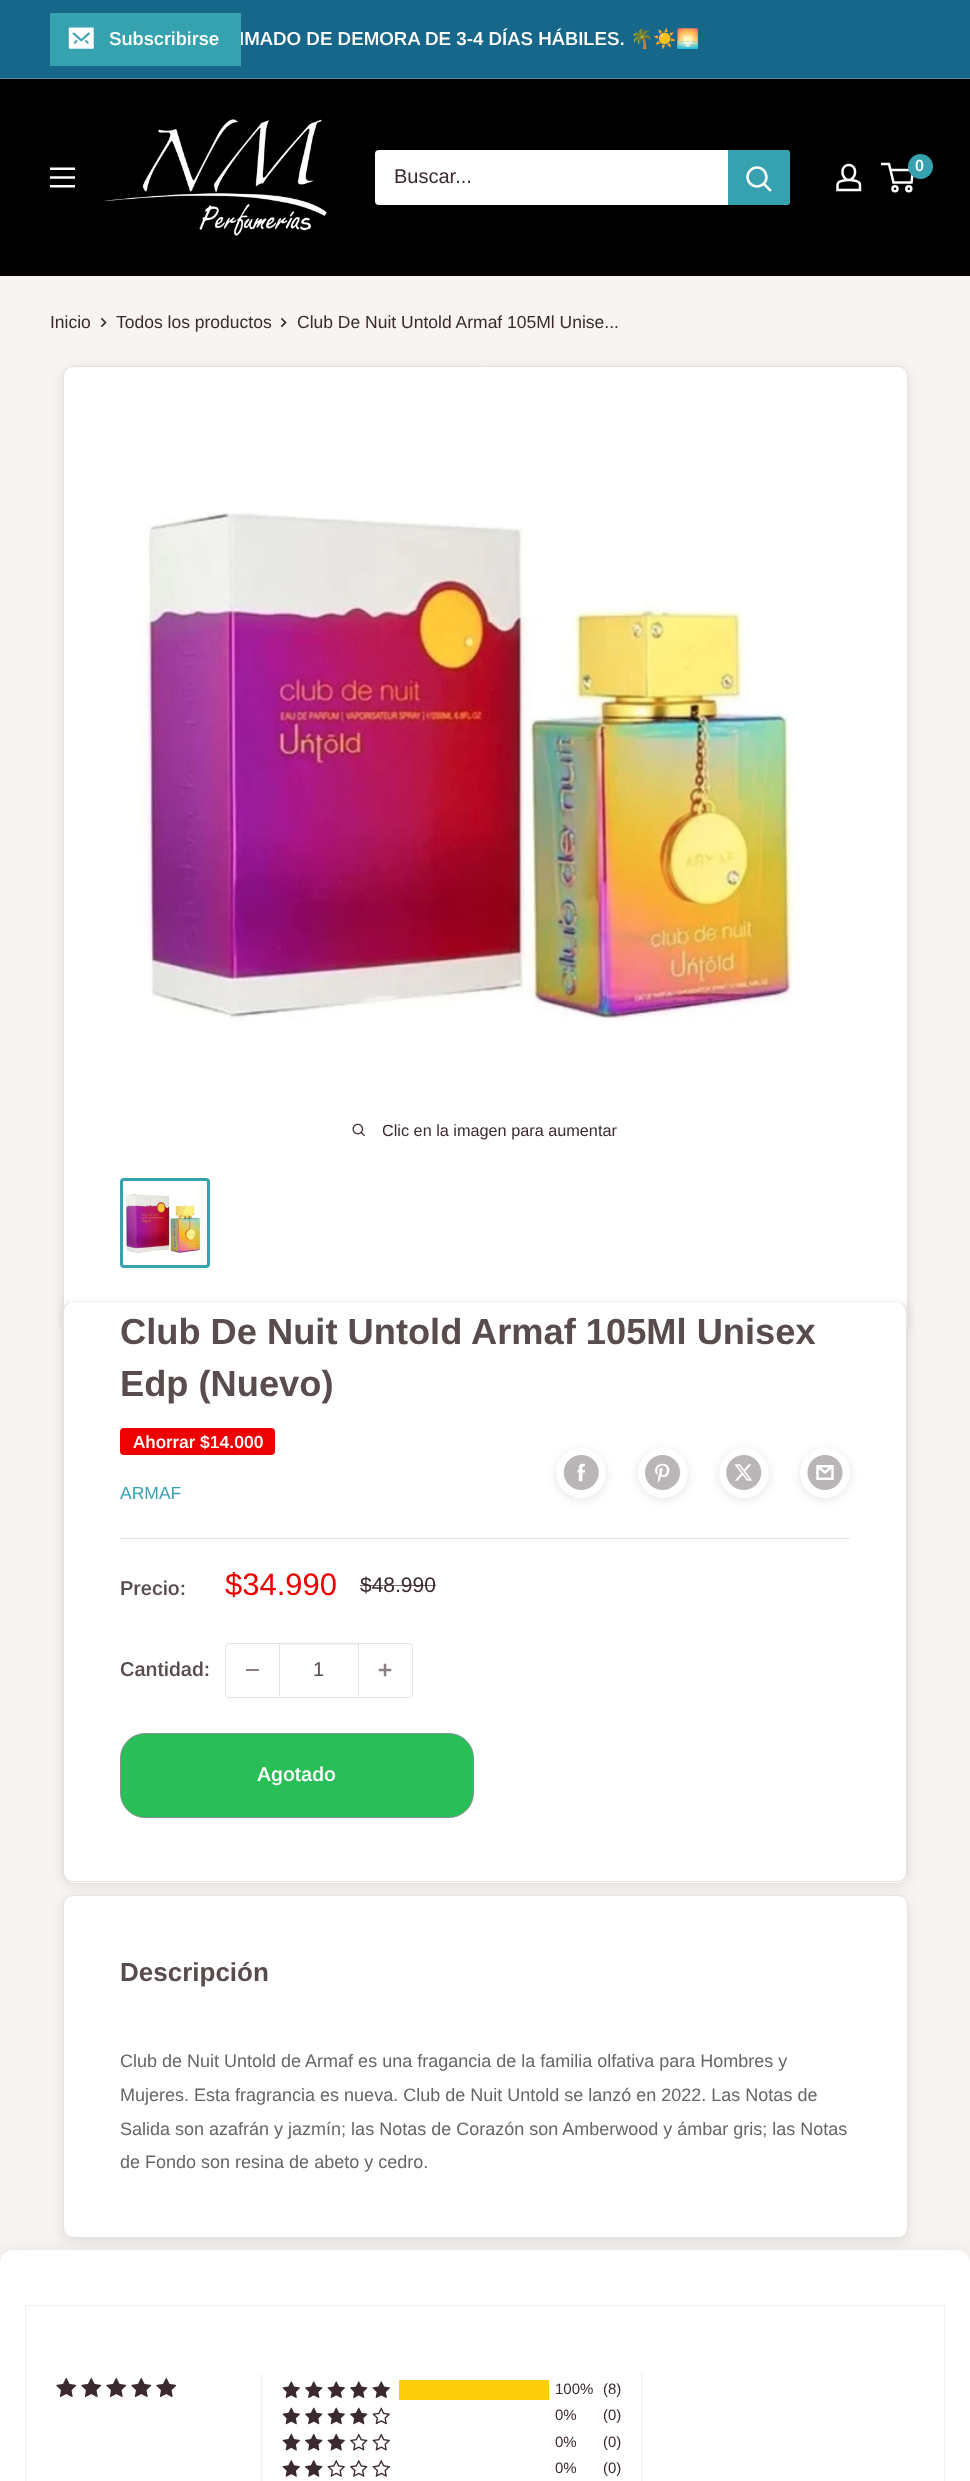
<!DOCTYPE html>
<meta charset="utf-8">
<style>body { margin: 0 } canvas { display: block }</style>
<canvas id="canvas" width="970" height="2481"></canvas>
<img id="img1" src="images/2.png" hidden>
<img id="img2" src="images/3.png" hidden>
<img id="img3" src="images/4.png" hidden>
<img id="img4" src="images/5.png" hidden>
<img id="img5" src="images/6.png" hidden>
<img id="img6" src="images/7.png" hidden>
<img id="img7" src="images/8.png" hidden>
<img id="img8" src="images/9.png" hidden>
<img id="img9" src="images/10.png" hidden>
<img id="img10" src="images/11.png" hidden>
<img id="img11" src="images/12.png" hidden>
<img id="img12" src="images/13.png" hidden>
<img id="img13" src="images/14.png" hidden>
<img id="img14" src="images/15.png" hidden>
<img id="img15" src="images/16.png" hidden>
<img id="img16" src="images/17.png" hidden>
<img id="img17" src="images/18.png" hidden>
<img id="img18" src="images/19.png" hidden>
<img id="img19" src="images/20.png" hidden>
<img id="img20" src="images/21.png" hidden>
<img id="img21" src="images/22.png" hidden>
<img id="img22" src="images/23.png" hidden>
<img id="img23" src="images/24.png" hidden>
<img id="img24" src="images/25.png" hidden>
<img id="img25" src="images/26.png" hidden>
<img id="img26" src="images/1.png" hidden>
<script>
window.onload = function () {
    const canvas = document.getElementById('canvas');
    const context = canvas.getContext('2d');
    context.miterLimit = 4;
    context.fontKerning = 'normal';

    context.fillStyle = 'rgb(247, 244, 242)';
    context.fillRect(0, 0, 970, 2481);
    context.fillStyle = 'rgb(22, 103, 138)';
    context.fillRect(0, 0, 970, 78);
    context.fillStyle = 'rgb(85, 140, 163)';
    context.fillRect(0, 78, 970, 1);
    context.fillStyle = 'rgb(0, 0, 0)';
    context.fillRect(0, 79, 970, 197);
    context.drawImage(document.getElementById('img1'), 104, 119, 223, 117);
    context.drawImage(document.getElementById('img2'), 836, 163, 26, 29);
    context.beginPath();
    context.arc(895, 188.8, 2.5, 0, 2 * Math.PI);
    context.strokeStyle = 'rgb(255, 255, 255)';
    context.lineWidth = 2.5;
    context.stroke();
    context.beginPath();
    context.arc(908.8, 188.8, 2.5, 0, 2 * Math.PI);
    context.stroke();
    context.beginPath();
    context.moveTo(890.5, 170);
    context.lineTo(913, 170);
    context.lineTo(911.5, 182.5);
    context.lineTo(893.5, 182.5);
    context.lineTo(889, 164);
    context.lineTo(881, 164);
    context.stroke();
    context.fillStyle = 'rgb(54, 162, 176)';
    context.beginPath();
    context.arc(920.5, 166.5, 12.5, 0, 2 * Math.PI);
    context.fill();
    context.drawImage(document.getElementById('img3'), 50, 167, 25, 21);
    context.fillStyle = 'rgb(255, 255, 255)';
    context.beginPath();
    context.roundRect(375, 150, 415, 55, 4);
    context.fill();
    context.fillStyle = 'rgb(54, 162, 176)';
    context.beginPath();
    context.roundRect(728, 150, 62, 55, [0, 4, 4, 0]);
    context.fill();
    context.beginPath();
    context.moveTo(770, 190);
    context.lineTo(764, 184);
    context.lineCap = 'square';
    context.stroke();
    context.beginPath();
    context.arc(757, 177, 9.5, 0, 2 * Math.PI);
    context.stroke();
    context.beginPath();
    context.moveTo(102, 319);
    context.lineTo(105.5, 322.5);
    context.lineTo(102, 326);
    context.strokeStyle = 'rgb(58, 42, 47)';
    context.lineWidth = 1.7;
    context.stroke();
    context.beginPath();
    context.moveTo(282, 319);
    context.lineTo(285.5, 322.5);
    context.lineTo(282, 326);
    context.stroke();
    context.fillStyle = 'rgba(0, 0, 0, 0.1)';
    context.filter = 'blur(6px)';
    context.beginPath();
    context.roundRect(63, 369, 845, 961, 10);
    context.fill();
    context.filter = 'none';
    context.fillStyle = 'rgb(255, 255, 255)';
    context.beginPath();
    context.roundRect(63.5, 366.5, 844, 961, 9.5);
    context.fill();
    context.strokeStyle = 'rgb(231, 226, 222)';
    context.lineWidth = 1;
    context.stroke();
    context.drawImage(document.getElementById('img4'), 139, 512, 661, 509);
    context.drawImage(document.getElementById('img5'), 352, 1123, 13, 14);
    context.beginPath();
    context.roundRect(121.5, 1179.5, 87, 87, 2.5);
    context.strokeStyle = 'rgb(54, 162, 176)';
    context.lineWidth = 3;
    context.stroke();
    context.drawImage(document.getElementById('img6'), 125, 1194, 79, 61);
    context.fillStyle = 'rgba(0, 0, 0, 0.1)';
    context.filter = 'blur(6px)';
    context.beginPath();
    context.roundRect(63, 1305, 845, 580, 10);
    context.fill();
    context.filter = 'none';
    context.fillStyle = 'rgb(255, 255, 255)';
    context.beginPath();
    context.roundRect(63, 1303, 845, 580, 10);
    context.fill();
    context.fillStyle = 'rgb(231, 226, 222)';
    context.beginPath();
    context.moveTo(72, 1302);
    context.lineTo(898, 1302);
    context.bezierCurveTo(903, 1302, 908, 1307, 908, 1312);
    context.lineTo(908, 1872);
    context.bezierCurveTo(908, 1878, 903, 1882, 898, 1882);
    context.lineTo(72, 1882);
    context.bezierCurveTo(67, 1882, 62, 1878, 62, 1872);
    context.lineTo(62, 1312);
    context.bezierCurveTo(62, 1307, 67, 1302, 72, 1302);
    context.closePath();
    context.moveTo(72, 1302);
    context.lineTo(898, 1302);
    context.bezierCurveTo(902, 1302, 906, 1307, 906, 1312);
    context.lineTo(906, 1872);
    context.bezierCurveTo(906, 1877, 902, 1881, 898, 1881);
    context.lineTo(72, 1881);
    context.bezierCurveTo(68, 1881, 64, 1877, 64, 1872);
    context.lineTo(64, 1312);
    context.bezierCurveTo(64, 1307, 68, 1302, 72, 1302);
    context.closePath();
    context.fill('evenodd');
    context.fillStyle = 'rgb(238, 0, 0)';
    context.beginPath();
    context.roundRect(120, 1428, 155, 27, 4);
    context.fill();
    context.fillStyle = 'rgba(0, 0, 0, 0.1)';
    context.filter = 'blur(5px)';
    context.beginPath();
    context.roundRect(556, 1450, 50, 50, 25);
    context.fill();
    context.filter = 'none';
    context.fillStyle = 'rgb(255, 255, 255)';
    context.beginPath();
    context.arc(581, 1473, 25, 0, 2 * Math.PI);
    context.fill();
    context.drawImage(document.getElementById('img7'), 563, 1455, 36, 35);
    context.fillStyle = 'rgba(0, 0, 0, 0.1)';
    context.filter = 'blur(5px)';
    context.beginPath();
    context.roundRect(638, 1450, 50, 50, 25);
    context.fill();
    context.filter = 'none';
    context.fillStyle = 'rgb(255, 255, 255)';
    context.beginPath();
    context.arc(663, 1473, 25, 0, 2 * Math.PI);
    context.fill();
    context.drawImage(document.getElementById('img8'), 645, 1455, 35, 35);
    context.fillStyle = 'rgba(0, 0, 0, 0.1)';
    context.filter = 'blur(5px)';
    context.beginPath();
    context.roundRect(719, 1450, 50, 50, 25);
    context.fill();
    context.filter = 'none';
    context.fillStyle = 'rgb(255, 255, 255)';
    context.beginPath();
    context.arc(744, 1473, 25, 0, 2 * Math.PI);
    context.fill();
    context.drawImage(document.getElementById('img9'), 726, 1455, 36, 35);
    context.fillStyle = 'rgba(0, 0, 0, 0.1)';
    context.filter = 'blur(5px)';
    context.beginPath();
    context.roundRect(800, 1450, 50, 50, 25);
    context.fill();
    context.filter = 'none';
    context.fillStyle = 'rgb(255, 255, 255)';
    context.beginPath();
    context.arc(825, 1473, 25, 0, 2 * Math.PI);
    context.fill();
    context.drawImage(document.getElementById('img10'), 807, 1455, 36, 35);
    context.fillStyle = 'rgb(231, 226, 222)';
    context.fillRect(120, 1538, 730, 1);
    context.beginPath();
    context.roundRect(225.5, 1643.5, 187, 54, 3.5);
    context.strokeStyle = 'rgb(231, 226, 222)';
    context.lineWidth = 1;
    context.stroke();
    context.fillStyle = 'rgb(137, 127, 130)';
    context.fillRect(246, 1669, 13, 2);
    context.fillStyle = 'rgb(245, 243, 242)';
    context.fillRect(280, 1644, 78, 1);
    context.fillStyle = 'rgb(231, 226, 222)';
    context.fillRect(358, 1644, 1, 52);
    context.fillRect(279, 1644, 1, 52);
    context.drawImage(document.getElementById('img11'), 378, 1663, 14, 14);
    context.fillStyle = 'rgb(42, 190, 89)';
    context.beginPath();
    context.roundRect(120.5, 1733.5, 353, 84, 24.5);
    context.fill();
    context.strokeStyle = 'rgb(138, 146, 151)';
    context.stroke();
    context.fillStyle = 'rgba(0, 0, 0, 0.1)';
    context.filter = 'blur(12.5px)';
    context.beginPath();
    context.roundRect(0, 2255, 970, 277, 13);
    context.fill();
    context.filter = 'none';
    context.fillStyle = 'rgb(255, 255, 255)';
    context.beginPath();
    context.roundRect(0, 2250, 970, 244, 13);
    context.fill();
    context.fillStyle = 'rgba(0, 0, 0, 0.1)';
    context.filter = 'blur(6px)';
    context.beginPath();
    context.roundRect(63, 1898, 845, 342, 10);
    context.fill();
    context.filter = 'none';
    context.fillStyle = 'rgb(255, 255, 255)';
    context.beginPath();
    context.roundRect(63.5, 1895.5, 844, 342, 9.5);
    context.fill();
    context.strokeStyle = 'rgb(231, 226, 222)';
    context.stroke();
    context.strokeStyle = 'rgb(238, 238, 238)';
    context.strokeRect(25.5, 2305.5, 919, 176);
    context.drawImage(document.getElementById('img12'), 56, 2378, 21, 19);
    context.drawImage(document.getElementById('img12'), 81, 2378, 21, 19);
    context.drawImage(document.getElementById('img12'), 106, 2378, 21, 19);
    context.drawImage(document.getElementById('img12'), 131, 2378, 21, 19);
    context.drawImage(document.getElementById('img12'), 156, 2378, 21, 19);
    context.fillStyle = 'rgb(238, 238, 238)';
    context.fillRect(641, 2374, 1, 107);
    context.fillRect(261, 2374, 1, 107);
    context.drawImage(document.getElementById('img13'), 282, 2381, 18, 17);
    context.drawImage(document.getElementById('img14'), 305, 2381, 18, 17);
    context.drawImage(document.getElementById('img13'), 327, 2381, 18, 17);
    context.drawImage(document.getElementById('img14'), 350, 2381, 18, 17);
    context.drawImage(document.getElementById('img13'), 372, 2381, 18, 17);
    context.fillStyle = 'rgb(251, 205, 10)';
    context.fillRect(399, 2380, 150, 20);
    context.drawImage(document.getElementById('img15'), 282, 2407, 18, 18);
    context.drawImage(document.getElementById('img16'), 305, 2407, 18, 18);
    context.drawImage(document.getElementById('img15'), 327, 2407, 18, 18);
    context.drawImage(document.getElementById('img16'), 350, 2407, 18, 18);
    context.drawImage(document.getElementById('img17'), 372, 2407, 18, 18);
    context.drawImage(document.getElementById('img18'), 282, 2433, 18, 18);
    context.drawImage(document.getElementById('img19'), 305, 2433, 18, 18);
    context.drawImage(document.getElementById('img18'), 327, 2433, 18, 18);
    context.drawImage(document.getElementById('img20'), 350, 2433, 18, 18);
    context.drawImage(document.getElementById('img21'), 372, 2433, 18, 18);
    context.drawImage(document.getElementById('img22'), 282, 2460, 18, 17);
    context.drawImage(document.getElementById('img23'), 305, 2460, 18, 17);
    context.drawImage(document.getElementById('img24'), 327, 2460, 18, 17);
    context.drawImage(document.getElementById('img25'), 350, 2460, 18, 17);
    context.drawImage(document.getElementById('img24'), 372, 2460, 18, 17);
    context.font = '600 18.75px Arimo';
    context.fillStyle = 'rgb(255, 255, 255)';
    context.fillText('IMADO DE DEMORA DE 3-4 DÍAS HÁBILES.', 239, 45);
    context.fillStyle = 'rgb(54, 162, 176)';
    context.fillRect(50, 13, 191, 53);
    context.drawImage(document.getElementById('img26'), 68, 27, 26, 22);
    context.fillStyle = 'rgb(255, 255, 255)';
    context.fillText('Subscribirse', 109, 45);
    context.font = 'bold 18.75px Noto Color Emoji';
    context.fillText('🌴☀️🌅', 630, 45);
    context.font = '600 16px Arimo';
    context.fillText('0', 915, 171);
    context.font = '20px Arimo';
    context.fillStyle = 'rgb(58, 42, 47)';
    context.fillText('Buscar...', 394, 183);
    context.font = '17.5px Arimo';
    context.fillText('Inicio', 50, 328);
    context.fillText('Todos los productos', 116, 328);
    context.fillText('Club De Nuit Untold Armaf 105Ml Unise...', 297, 328);
    context.font = '16.25px Arimo';
    context.fillText('Clic en la imagen para aumentar', 382, 1136);
    context.font = 'bold 36.25px Arimo';
    context.fillStyle = 'rgb(89, 76, 76)';
    context.fillText('Club De Nuit Untold Armaf 105Ml Unisex', 120, 1344);
    context.fillText('Edp (Nuevo)', 120, 1396);
    context.font = '600 17.5px Arimo';
    context.fillStyle = 'rgb(255, 255, 255)';
    context.fillText('Ahorrar $14.000', 133, 1448);
    context.font = '17.5px Arimo';
    context.fillStyle = 'rgb(54, 162, 176)';
    context.fillText('ARMAF', 120, 1499);
    context.font = '600 20px Arimo';
    context.fillStyle = 'rgb(89, 76, 76)';
    context.fillText('Precio:', 120, 1595);
    context.font = '31px Arimo';
    context.fillStyle = 'rgb(238, 0, 0)';
    context.fillText('$34.990', 225, 1595);
    context.font = '21px Arimo';
    context.fillStyle = 'rgb(58, 42, 47)';
    context.fillText('$48.990', 360, 1592);
    context.fillStyle = 'rgba(58, 42, 47, 0.7)';
    context.fillRect(360, 1585, 76, 1);
    context.font = '600 20px Arimo';
    context.fillStyle = 'rgb(89, 76, 76)';
    context.fillText('Cantidad:', 120, 1676);
    context.font = '20px Arimo';
    context.fillText('1', 313, 1676);
    context.font = '600 20px Arimo';
    context.fillStyle = 'rgb(255, 255, 255)';
    context.fillText('Agotado', 257, 1781);
    context.font = 'bold 26px Arimo';
    context.fillStyle = 'rgb(89, 76, 76)';
    context.fillText('Descripción', 120, 1981);
    context.font = '18px Arimo';
    context.fillStyle = 'rgb(102, 102, 102)';
    context.fillText('Club de Nuit Untold de Armaf es una fragancia de la familia olfativa para Hombres y', 120, 2067);
    context.fillText('Mujeres. Esta fragrancia es nueva. Club de Nuit Untold se lanzó en 2022. Las Notas de', 120, 2101);
    context.fillText('Salida son azafrán y jazmín; las Notas de Corazón son Amberwood y ámbar gris; las Notas', 120, 2135);
    context.fillText('de Fondo son resina de abeto y cedro.', 120, 2168);
    context.font = '15px Arimo';
    context.fillStyle = 'rgb(58, 42, 47)';
    context.fillText('100%', 555, 2394);
    context.fillText('(8)', 603, 2394);
    context.fillText('0%', 555, 2420);
    context.fillText('(0)', 603, 2420);
    context.fillText('0%', 555, 2447);
    context.fillText('(0)', 603, 2447);
    context.fillText('0%', 555, 2473);
    context.fillText('(0)', 603, 2473);
};
</script>
